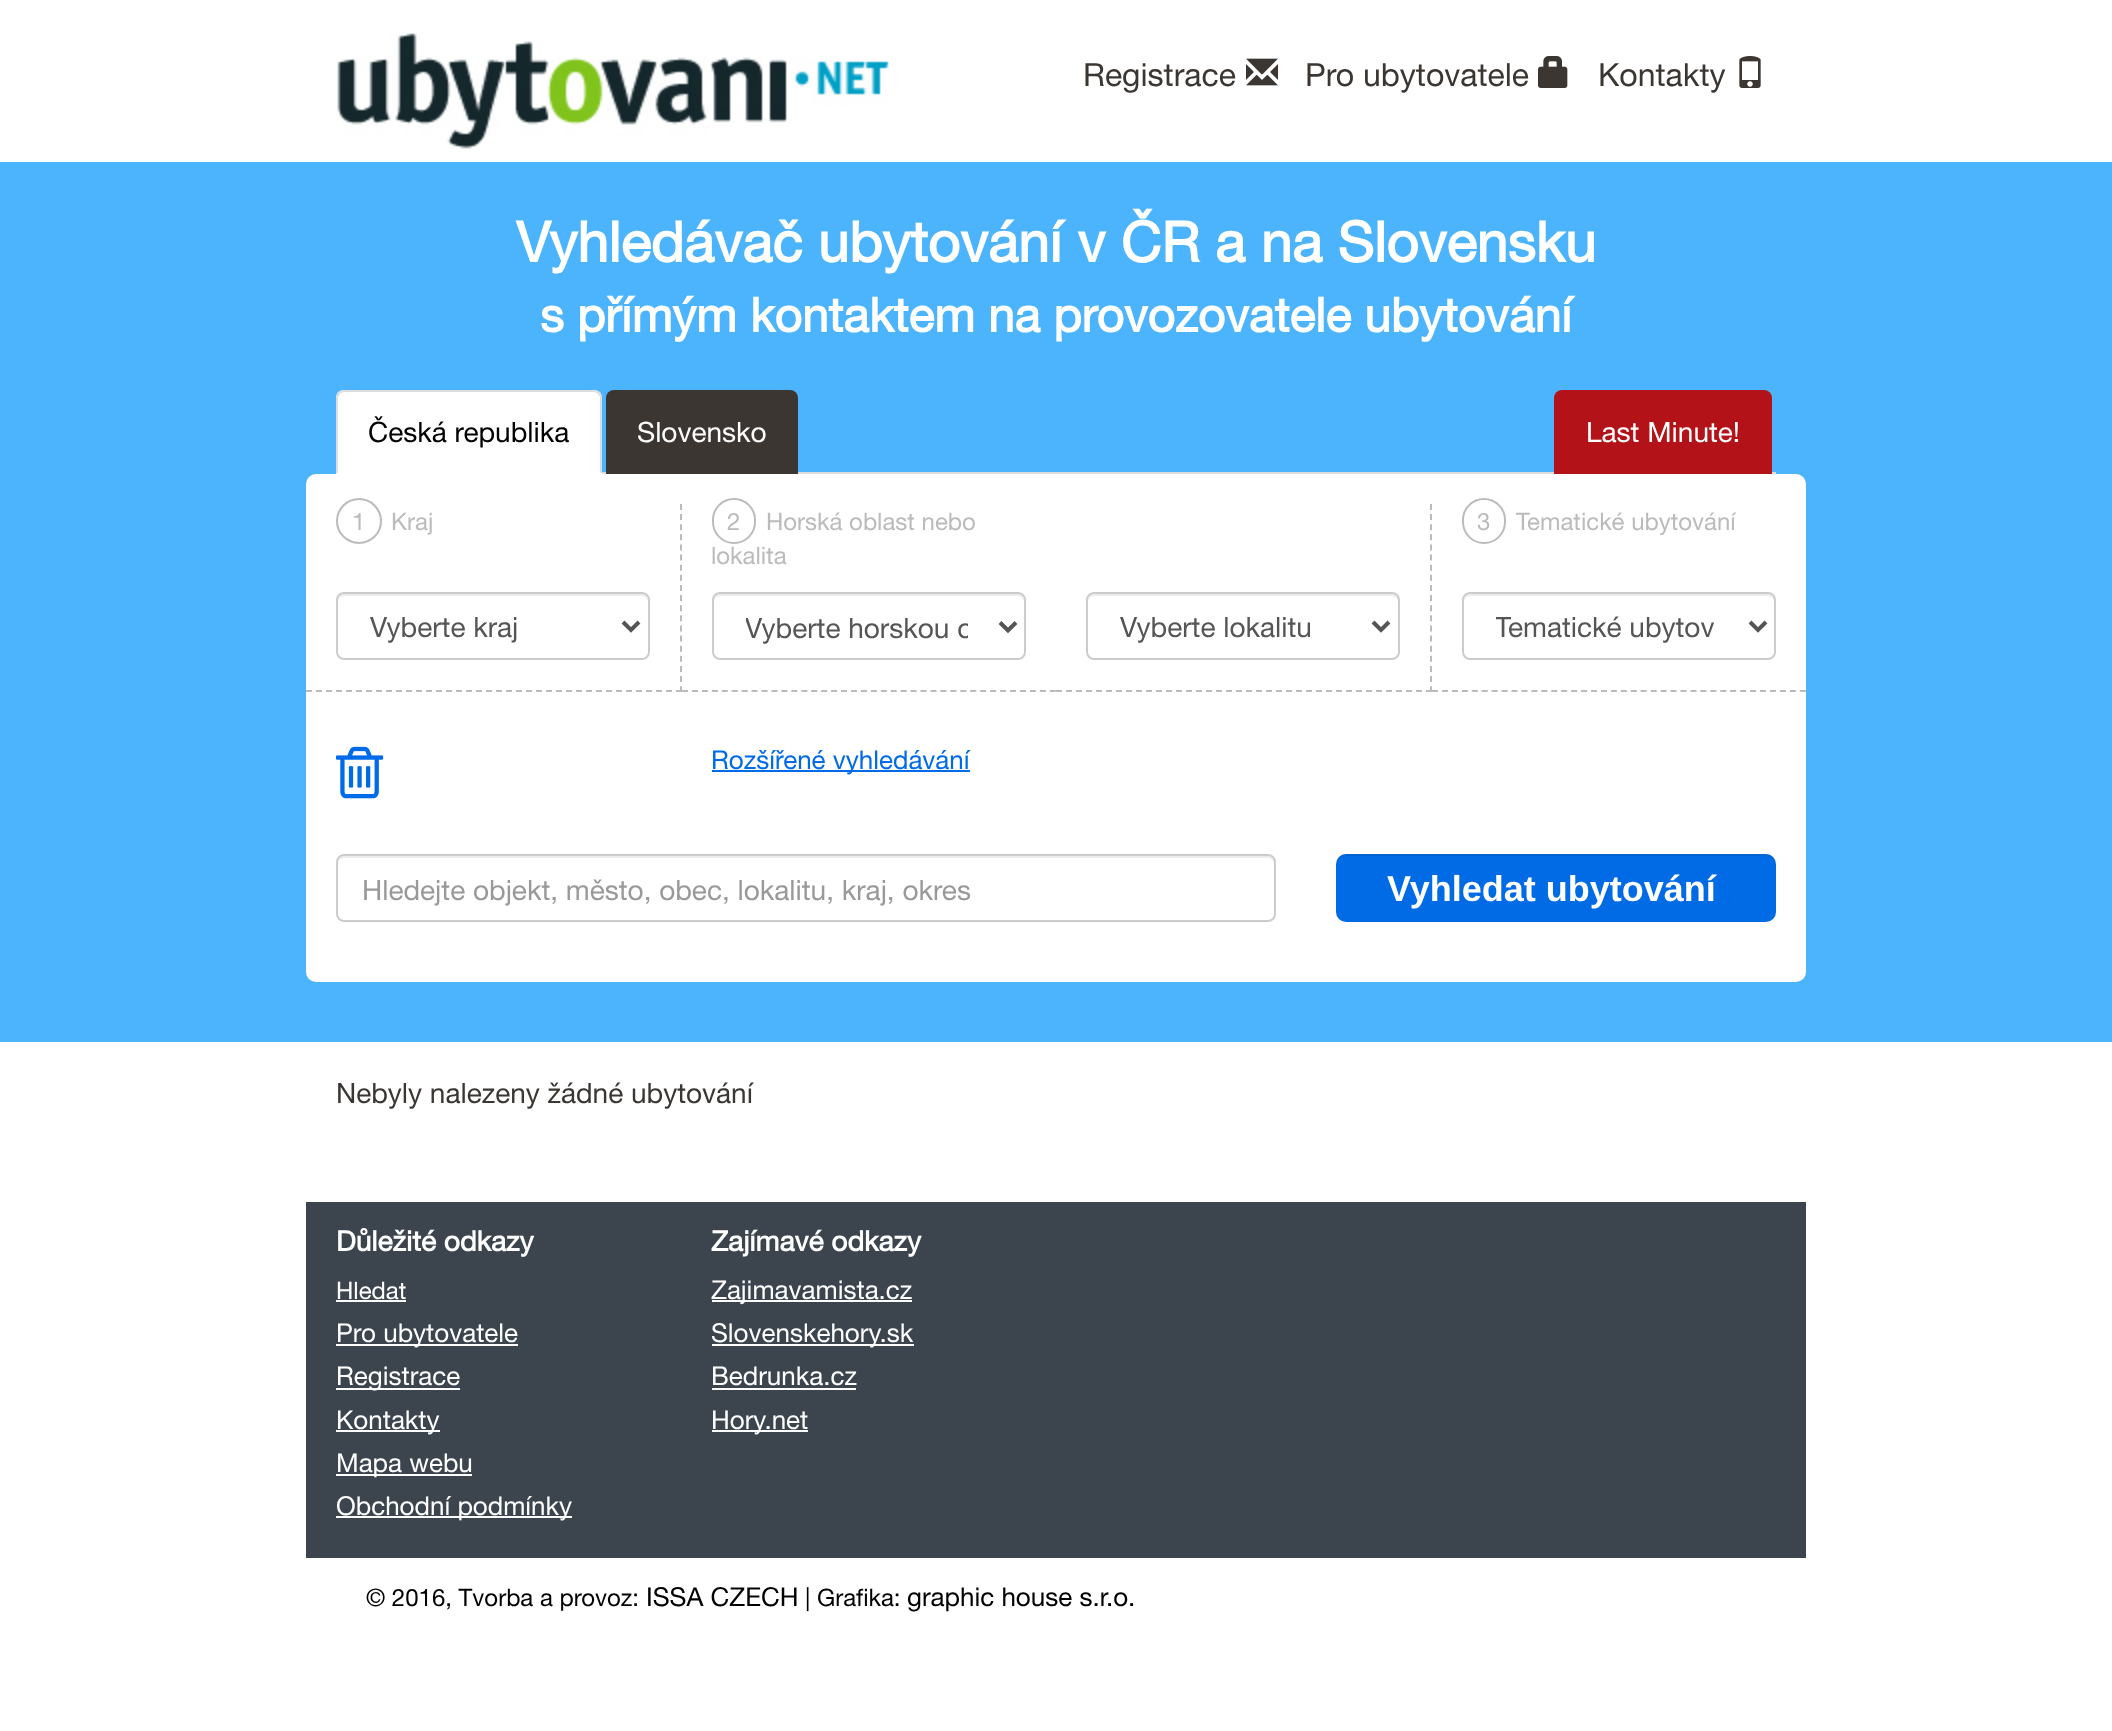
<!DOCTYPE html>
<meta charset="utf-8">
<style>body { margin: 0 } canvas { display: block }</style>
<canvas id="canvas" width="2112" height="1731"></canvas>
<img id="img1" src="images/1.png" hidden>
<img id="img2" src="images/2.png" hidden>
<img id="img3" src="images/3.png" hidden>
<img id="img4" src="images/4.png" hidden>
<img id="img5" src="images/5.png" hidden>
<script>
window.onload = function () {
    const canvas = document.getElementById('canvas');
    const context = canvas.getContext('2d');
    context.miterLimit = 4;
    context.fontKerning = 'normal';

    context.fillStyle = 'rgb(255, 255, 255)';
    context.fillRect(0, 0, 2112, 1731);
    context.drawImage(document.getElementById('img1'), 337, 33, 552, 116);
    context.drawImage(document.getElementById('img2'), 1246, 58, 32, 28);
    context.drawImage(document.getElementById('img3'), 1538, 56, 30, 32);
    context.drawImage(document.getElementById('img4'), 1739, 56, 22, 32);
    context.fillStyle = 'rgb(76, 180, 253)';
    context.fillRect(0, 162, 2112, 880);
    context.fillStyle = 'rgb(221, 221, 221)';
    context.fillRect(602, 472, 1174, 2);
    context.fillStyle = 'rgb(255, 255, 255)';
    context.beginPath();
    context.roundRect(336, 390, 266, 84, [8, 8, 0, 0]);
    context.fill();
    context.fillStyle = 'rgb(221, 221, 221)';
    context.beginPath();
    context.moveTo(344, 390);
    context.bezierCurveTo(342, 390, 340, 391, 338, 392);
    context.lineTo(340, 394);
    context.bezierCurveTo(341, 393, 342, 392, 344, 392);
    context.lineTo(594, 392);
    context.bezierCurveTo(596, 392, 597, 393, 598, 394);
    context.lineTo(600, 392);
    context.bezierCurveTo(598, 391, 596, 390, 594, 390);
    context.closePath();
    context.fill();
    context.beginPath();
    context.moveTo(602, 474);
    context.lineTo(602, 398);
    context.bezierCurveTo(602, 396, 601, 394, 600, 392);
    context.lineTo(598, 394);
    context.lineTo(600, 397);
    context.lineTo(600, 472);
    context.closePath();
    context.fill();
    context.beginPath();
    context.moveTo(336, 474);
    context.lineTo(338, 472);
    context.lineTo(338, 397);
    context.lineTo(340, 394);
    context.lineTo(338, 392);
    context.bezierCurveTo(337, 394, 336, 396, 336, 398);
    context.closePath();
    context.fill();
    context.fillStyle = 'rgb(59, 54, 50)';
    context.beginPath();
    context.roundRect(606, 390, 192, 84, [8, 8, 0, 0]);
    context.fill();
    context.fillStyle = 'rgb(178, 18, 24)';
    context.beginPath();
    context.roundRect(1554, 390, 218, 84, [8, 8, 0, 0]);
    context.fill();
    context.fillStyle = 'rgb(255, 255, 255)';
    context.beginPath();
    context.roundRect(306, 474, 1500, 360, [10, 10, 0, 0]);
    context.fill();
    context.beginPath();
    context.moveTo(681, 504);
    context.lineTo(681, 692);
    context.strokeStyle = 'rgb(187, 187, 187)';
    context.lineWidth = 2;
    context.setLineDash([6, 4.12]);
    context.stroke();
    context.beginPath();
    context.moveTo(306, 691);
    context.lineTo(682, 691);
    context.setLineDash([6, 4]);
    context.stroke();
    context.beginPath();
    context.arc(359, 521, 22, 0, 2 * Math.PI);
    context.setLineDash([]);
    context.stroke();
    context.fillStyle = 'rgb(236, 236, 236)';
    context.beginPath();
    context.moveTo(344, 596);
    context.lineTo(642, 596);
    context.bezierCurveTo(645, 596, 648, 599, 648, 602);
    context.lineTo(648, 600);
    context.bezierCurveTo(648, 597, 645, 594, 642, 594);
    context.lineTo(344, 594);
    context.bezierCurveTo(341, 594, 338, 597, 338, 600);
    context.lineTo(338, 602);
    context.bezierCurveTo(338, 599, 341, 596, 344, 596);
    context.closePath();
    context.fill();
    context.beginPath();
    context.roundRect(337, 593, 312, 66, 7);
    context.strokeStyle = 'rgb(204, 204, 204)';
    context.stroke();
    context.beginPath();
    context.moveTo(623, 622);
    context.lineTo(631, 630);
    context.lineTo(639, 622);
    context.strokeStyle = 'rgb(85, 85, 85)';
    context.lineWidth = 4;
    context.stroke();
    context.beginPath();
    context.moveTo(682, 691);
    context.lineTo(1056, 691);
    context.strokeStyle = 'rgb(187, 187, 187)';
    context.lineWidth = 2;
    context.setLineDash([6, 3.94]);
    context.stroke();
    context.beginPath();
    context.roundRect(713, 499, 42, 44, 21);
    context.setLineDash([]);
    context.stroke();
    context.beginPath();
    context.moveTo(720, 596);
    context.lineTo(1018, 596);
    context.bezierCurveTo(1021, 596, 1024, 599, 1024, 602);
    context.lineTo(1024, 600);
    context.bezierCurveTo(1024, 597, 1021, 594, 1018, 594);
    context.lineTo(720, 594);
    context.bezierCurveTo(717, 594, 714, 597, 714, 600);
    context.lineTo(714, 602);
    context.bezierCurveTo(714, 599, 717, 596, 720, 596);
    context.closePath();
    context.fill();
    context.beginPath();
    context.roundRect(713, 593, 312, 66, 7);
    context.strokeStyle = 'rgb(204, 204, 204)';
    context.stroke();
    context.beginPath();
    context.moveTo(1000, 622.5);
    context.lineTo(1008, 630.5);
    context.lineTo(1016, 622.5);
    context.strokeStyle = 'rgb(85, 85, 85)';
    context.lineWidth = 4;
    context.stroke();
    context.beginPath();
    context.moveTo(1431, 504);
    context.lineTo(1431, 692);
    context.strokeStyle = 'rgb(187, 187, 187)';
    context.lineWidth = 2;
    context.setLineDash([6, 4.12]);
    context.stroke();
    context.beginPath();
    context.moveTo(1056, 691);
    context.lineTo(1432, 691);
    context.setLineDash([6, 4]);
    context.stroke();
    context.beginPath();
    context.moveTo(1094, 596);
    context.lineTo(1392, 596);
    context.bezierCurveTo(1395, 596, 1398, 599, 1398, 602);
    context.lineTo(1398, 600);
    context.bezierCurveTo(1398, 597, 1395, 594, 1392, 594);
    context.lineTo(1094, 594);
    context.bezierCurveTo(1091, 594, 1088, 597, 1088, 600);
    context.lineTo(1088, 602);
    context.bezierCurveTo(1088, 599, 1091, 596, 1094, 596);
    context.closePath();
    context.fill();
    context.beginPath();
    context.roundRect(1087, 593, 312, 66, 7);
    context.strokeStyle = 'rgb(204, 204, 204)';
    context.setLineDash([]);
    context.stroke();
    context.beginPath();
    context.moveTo(1373, 622);
    context.lineTo(1381, 630);
    context.lineTo(1389, 622);
    context.strokeStyle = 'rgb(85, 85, 85)';
    context.lineWidth = 4;
    context.stroke();
    context.beginPath();
    context.moveTo(1432, 691);
    context.lineTo(1806, 691);
    context.strokeStyle = 'rgb(187, 187, 187)';
    context.lineWidth = 2;
    context.setLineDash([6, 3.94]);
    context.stroke();
    context.beginPath();
    context.roundRect(1463, 499, 42, 44, 21);
    context.setLineDash([]);
    context.stroke();
    context.beginPath();
    context.moveTo(1470, 596);
    context.lineTo(1768, 596);
    context.bezierCurveTo(1771, 596, 1774, 599, 1774, 602);
    context.lineTo(1774, 600);
    context.bezierCurveTo(1774, 597, 1771, 594, 1768, 594);
    context.lineTo(1470, 594);
    context.bezierCurveTo(1467, 594, 1464, 597, 1464, 600);
    context.lineTo(1464, 602);
    context.bezierCurveTo(1464, 599, 1467, 596, 1470, 596);
    context.closePath();
    context.fill();
    context.beginPath();
    context.roundRect(1463, 593, 312, 66, 7);
    context.strokeStyle = 'rgb(204, 204, 204)';
    context.stroke();
    context.beginPath();
    context.moveTo(1750, 622);
    context.lineTo(1758, 630);
    context.lineTo(1766, 622);
    context.strokeStyle = 'rgb(85, 85, 85)';
    context.lineWidth = 4;
    context.stroke();
    context.drawImage(document.getElementById('img5'), 336, 746, 48, 53);
    context.fillStyle = 'rgb(0, 107, 230)';
    context.fillRect(712, 770, 258, 2);
    context.fillStyle = 'rgb(255, 255, 255)';
    context.beginPath();
    context.roundRect(306, 834, 1500, 148, [0, 0, 10, 10]);
    context.fill();
    context.fillStyle = 'rgb(236, 236, 236)';
    context.beginPath();
    context.moveTo(344, 858);
    context.lineTo(1268, 858);
    context.bezierCurveTo(1271, 858, 1274, 861, 1274, 864);
    context.lineTo(1274, 862);
    context.bezierCurveTo(1274, 859, 1271, 856, 1268, 856);
    context.lineTo(344, 856);
    context.bezierCurveTo(341, 856, 338, 859, 338, 862);
    context.lineTo(338, 864);
    context.bezierCurveTo(338, 861, 341, 858, 344, 858);
    context.closePath();
    context.fill();
    context.beginPath();
    context.roundRect(337, 855, 938, 66, 7);
    context.strokeStyle = 'rgb(204, 204, 204)';
    context.lineWidth = 2;
    context.stroke();
    context.fillStyle = 'rgb(0, 107, 229)';
    context.beginPath();
    context.roundRect(1336, 854, 440, 68, 10);
    context.fill();
    context.fillStyle = 'rgba(0, 0, 0, 0.07)';
    context.beginPath();
    context.moveTo(1346, 856);
    context.lineTo(1766, 856);
    context.bezierCurveTo(1772, 856, 1776, 860, 1776, 866);
    context.bezierCurveTo(1776, 860, 1773, 854, 1766, 854);
    context.lineTo(1344, 854);
    context.bezierCurveTo(1338, 855, 1336, 861, 1336, 866);
    context.bezierCurveTo(1336, 860, 1340, 856, 1346, 856);
    context.closePath();
    context.fill();
    context.fillStyle = 'rgb(60, 69, 78)';
    context.fillRect(306, 1202, 1500, 356);
    context.fillStyle = 'rgb(255, 255, 255)';
    context.fillRect(336, 1300, 70, 2);
    context.fillRect(336, 1344, 182, 2);
    context.fillRect(336, 1388, 124, 2);
    context.fillRect(336, 1430, 104, 2);
    context.fillRect(336, 1474, 136, 2);
    context.fillRect(336, 1516, 236, 2);
    context.fillRect(712, 1300, 200, 2);
    context.fillRect(712, 1344, 202, 2);
    context.fillRect(712, 1388, 144, 2);
    context.fillRect(712, 1430, 96, 2);
    context.font = '32px Helvetica Neue';
    context.fillStyle = 'rgb(59, 54, 50)';
    context.fillText('Registrace', 1083, 86);
    context.fillText('Pro ubytovatele', 1305, 86);
    context.fillText('Kontakty', 1598, 86);
    context.font = 'bold 56px Helvetica Neue';
    context.fillStyle = 'rgb(255, 255, 255)';
    context.fillText('Vyhledávač ubytování v ČR a na Slovensku', 516, 262);
    context.font = 'bold 47.6px Helvetica Neue';
    context.fillText('s přímým kontaktem na provozovatele ubytování', 540, 332);
    context.font = '28px Helvetica Neue';
    context.fillStyle = 'rgb(0, 0, 0)';
    context.fillText('Česká republika', 368, 442);
    context.fillStyle = 'rgb(255, 255, 255)';
    context.fillText('Slovensko', 637, 442);
    context.fillText('Last Minute!', 1586, 442);
    context.font = '24px Helvetica Neue';
    context.fillStyle = 'rgb(187, 187, 187)';
    context.fillText('1', 352, 530);
    context.fillText('Kraj', 391, 530);
    context.font = '28px Helvetica Neue';
    context.fillStyle = 'rgb(85, 85, 85)';
    context.fillText('Vyberte kraj', 370, 637);
    context.font = '24px Helvetica Neue';
    context.fillStyle = 'rgb(187, 187, 187)';
    context.fillText('2', 727, 530);
    context.fillText('Horská oblast nebo', 766, 530);
    context.fillText('lokalita', 711, 564);
    context.save();
    context.beginPath();
    context.rect(746, 608, 222, 38);
    context.clip();
    context.font = '28px Helvetica Neue';
    context.fillStyle = 'rgb(85, 85, 85)';
    context.fillText('Vyberte horskou o', 745, 638);
    context.restore();
    context.font = '28px Helvetica Neue';
    context.fillStyle = 'rgb(85, 85, 85)';
    context.fillText('Vyberte lokalitu', 1120, 637);
    context.font = '24px Helvetica Neue';
    context.fillStyle = 'rgb(187, 187, 187)';
    context.fillText('3', 1477, 530);
    context.fillText('Tematické ubytování', 1516, 530);
    context.save();
    context.beginPath();
    context.rect(1496, 606, 222, 38);
    context.clip();
    context.font = '28px Helvetica Neue';
    context.fillStyle = 'rgb(85, 85, 85)';
    context.fillText('Tematické ubytov', 1495, 637);
    context.restore();
    context.font = '26px Helvetica Neue';
    context.fillStyle = 'rgb(0, 107, 230)';
    context.fillText('Rozšířené vyhledávání', 711, 769);
    context.font = '28px Helvetica Neue';
    context.fillStyle = 'rgb(153, 153, 153)';
    context.fillText('Hledejte objekt, město, obec, lokalitu, kraj, okres', 362, 900);
    context.font = 'bold 36px Liberation Sans';
    context.fillStyle = 'rgb(255, 255, 255)';
    context.fillText('Vyhledat ubytování', 1387, 901);
    context.font = '28px Helvetica Neue';
    context.fillStyle = 'rgb(59, 54, 50)';
    context.fillText('Nebyly nalezeny žádné ubytování', 336, 1103);
    context.font = 'bold 28px Helvetica Neue';
    context.fillStyle = 'rgb(255, 255, 255)';
    context.fillText('Důležité odkazy', 336, 1251);
    context.font = '24px Helvetica Neue';
    context.fillText('Hledat', 336, 1299);
    context.font = '26px Helvetica Neue';
    context.fillText('Pro ubytovatele', 336, 1342);
    context.fillText('Registrace', 336, 1385);
    context.fillText('Kontakty', 336, 1429);
    context.fillText('Mapa webu', 336, 1472);
    context.fillText('Obchodní podmínky', 336, 1515);
    context.font = 'bold 28px Helvetica Neue';
    context.fillText('Zajímavé odkazy', 711, 1251);
    context.font = '26px Helvetica Neue';
    context.fillText('Zajimavamista.cz', 711, 1299);
    context.fillText('Slovenskehory.sk', 711, 1342);
    context.fillText('Bedrunka.cz', 711, 1385);
    context.fillText('Hory.net', 711, 1429);
    context.font = '24px Helvetica Neue';
    context.fillStyle = 'rgb(0, 0, 0)';
    context.fillText('© 2016, Tvorba a provoz:', 366, 1606);
    context.font = '26px Helvetica Neue';
    context.fillText('ISSA CZECH', 646, 1606);
    context.font = '24px Helvetica Neue';
    context.fillText('| Grafika:', 805, 1606);
    context.font = '26px Helvetica Neue';
    context.fillText('graphic house s.r.o.', 907, 1606);
};
</script>
